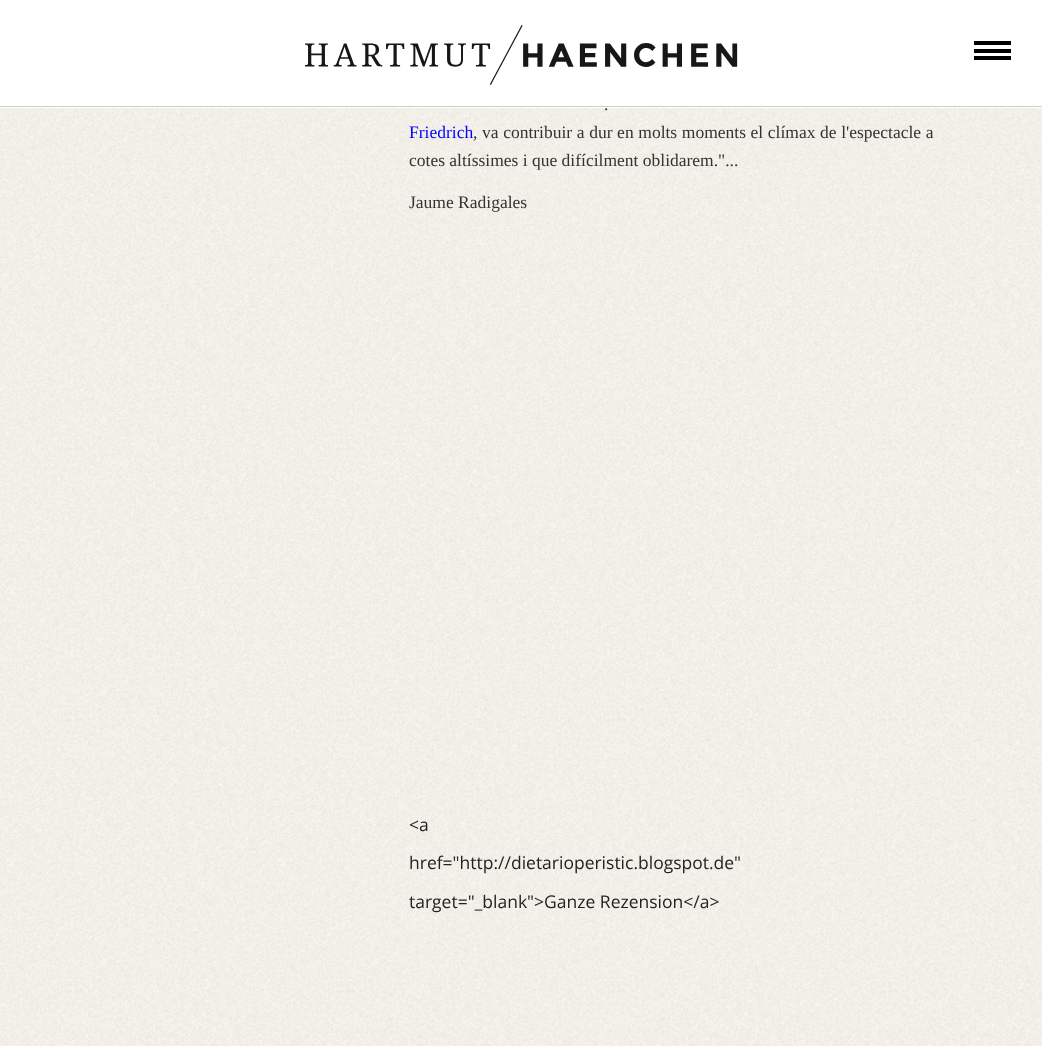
<!DOCTYPE html>
<meta charset="utf-8">
<style>body { margin: 0 } canvas { display: block }</style>
<canvas id="canvas" width="1042" height="1046"></canvas>
<img id="img1" src="images/1.png" hidden>
<img id="img2" src="images/2.png" hidden>
<script>
window.onload = function () {
    const canvas = document.getElementById('canvas');
    const context = canvas.getContext('2d');
    context.miterLimit = 4;
    context.fontKerning = 'normal';

    context.fillStyle = 'rgb(255, 255, 255)';
    context.fillRect(0, 0, 1042, 1046);
    context.drawImage(document.getElementById('img1'), 0, 108, 1042, 938);
    context.fillStyle = 'rgb(204, 204, 204)';
    context.fillRect(0, 106, 1042, 1);
    context.drawImage(document.getElementById('img2'), 305, 25, 433, 60);
    context.fillStyle = 'rgb(0, 0, 0)';
    context.fillRect(974, 41, 37, 4);
    context.fillRect(974, 49, 37, 4);
    context.fillRect(974, 56, 37, 4);
    context.wordSpacing = '4px';
    context.font = '17.5px Liberation Serif';
    context.fillStyle = 'rgb(51, 51, 51)';
    context.fillText('.', 604, 110);
    context.wordSpacing = '0px';
    context.fillStyle = 'rgb(0, 0, 255)';
    context.fillText('Friedrich', 409, 138);
    context.wordSpacing = '0.25px';
    context.fillStyle = 'rgb(51, 51, 51)';
    context.fillText(', va contribuir a dur en molts moments el clímax de l\'espectacle a', 473, 138);
    context.wordSpacing = '0px';
    context.fillText('cotes altíssimes i que difícilment oblidarem."...', 409, 166);
    context.fillText('Jaume Radigales', 409, 208);
    context.font = '17.5px Open Sans';
    context.fillStyle = 'rgb(34, 34, 34)';
    context.fillText('<a', 409, 831);
    context.fillText('href="http://dietarioperistic.blogspot.de"', 409, 869);
    context.fillText('target="_blank">Ganze Rezension<\/a>', 409, 908);
};
</script>
